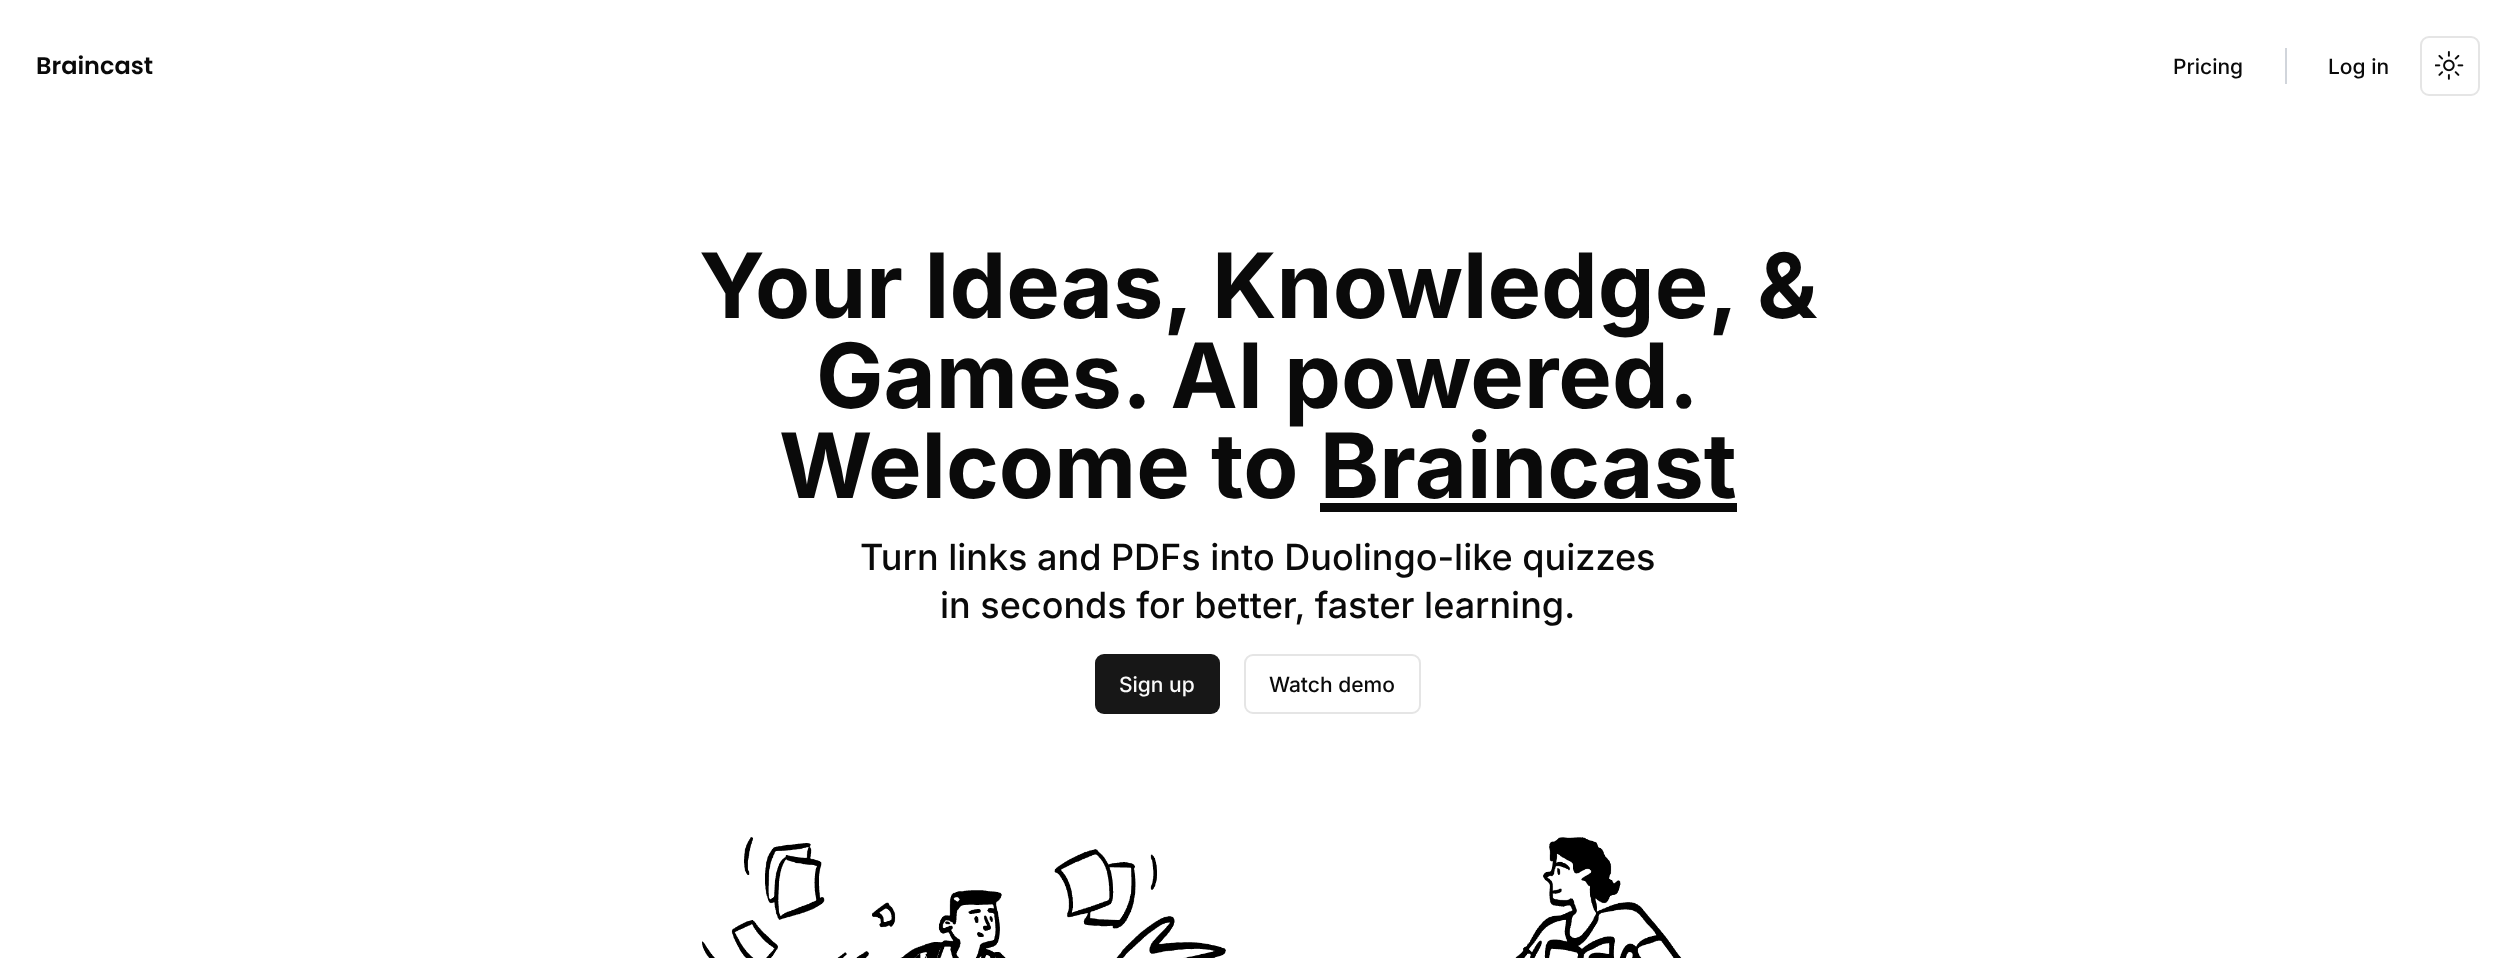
<!DOCTYPE html>
<meta charset="utf-8">
<style>body { margin: 0 } canvas { display: block }</style>
<canvas id="canvas" width="2515" height="958"></canvas>
<img id="img1" src="images/1.png" hidden>
<img id="img2" src="images/2.png" hidden>
<img id="img3" src="images/3.png" hidden>
<script>
window.onload = function () {
    const canvas = document.getElementById('canvas');
    const context = canvas.getContext('2d');
    context.miterLimit = 4;
    context.fontKerning = 'normal';

    context.fillStyle = 'rgb(255, 255, 255)';
    context.fillRect(0, 0, 2515, 958);
    context.fillStyle = 'rgb(209, 213, 219)';
    context.fillRect(2285, 48, 2, 36);
    context.beginPath();
    context.roundRect(2421, 37, 58, 58, 8);
    context.strokeStyle = 'rgb(229, 229, 229)';
    context.lineWidth = 2;
    context.stroke();
    context.drawImage(document.getElementById('img1'), 2435, 51, 29, 29);
    context.fillStyle = 'rgb(10, 10, 10)';
    context.fillRect(1320, 503, 417, 9);
    context.fillStyle = 'rgb(23, 23, 23)';
    context.beginPath();
    context.roundRect(1095, 654, 125, 60, 9);
    context.fill();
    context.beginPath();
    context.roundRect(1245, 655, 175, 58, 8);
    context.stroke();
    context.drawImage(document.getElementById('img2'), 702, 837, 524, 121);
    context.drawImage(document.getElementById('img3'), 1515, 837, 167, 121);
    context.font = '600 24px Poppins';
    context.fillStyle = 'rgb(10, 10, 10)';
    context.fillText('Braincast', 36, 74);
    context.font = '500 21px Inter';
    context.fillText('Pricing', 2173, 74);
    context.fillText('Log in', 2328, 74);
    context.font = 'bold 90px Inter';
    context.fillText('Your Ideas, Knowledge, &', 699, 318);
    context.fillText('Games. AI powered.', 816, 408);
    context.fillText('Welcome to Braincast', 779, 498);
    context.font = '500 36px Inter';
    context.fillText('Turn links and PDFs into Duolingo-like quizzes', 860, 570);
    context.fillText('in seconds for better, faster learning.', 940, 618);
    context.font = '500 21px Inter';
    context.fillStyle = 'rgb(250, 250, 250)';
    context.fillText('Sign up', 1119, 692);
    context.fillStyle = 'rgb(10, 10, 10)';
    context.fillText('Watch demo', 1269, 692);
};
</script>
